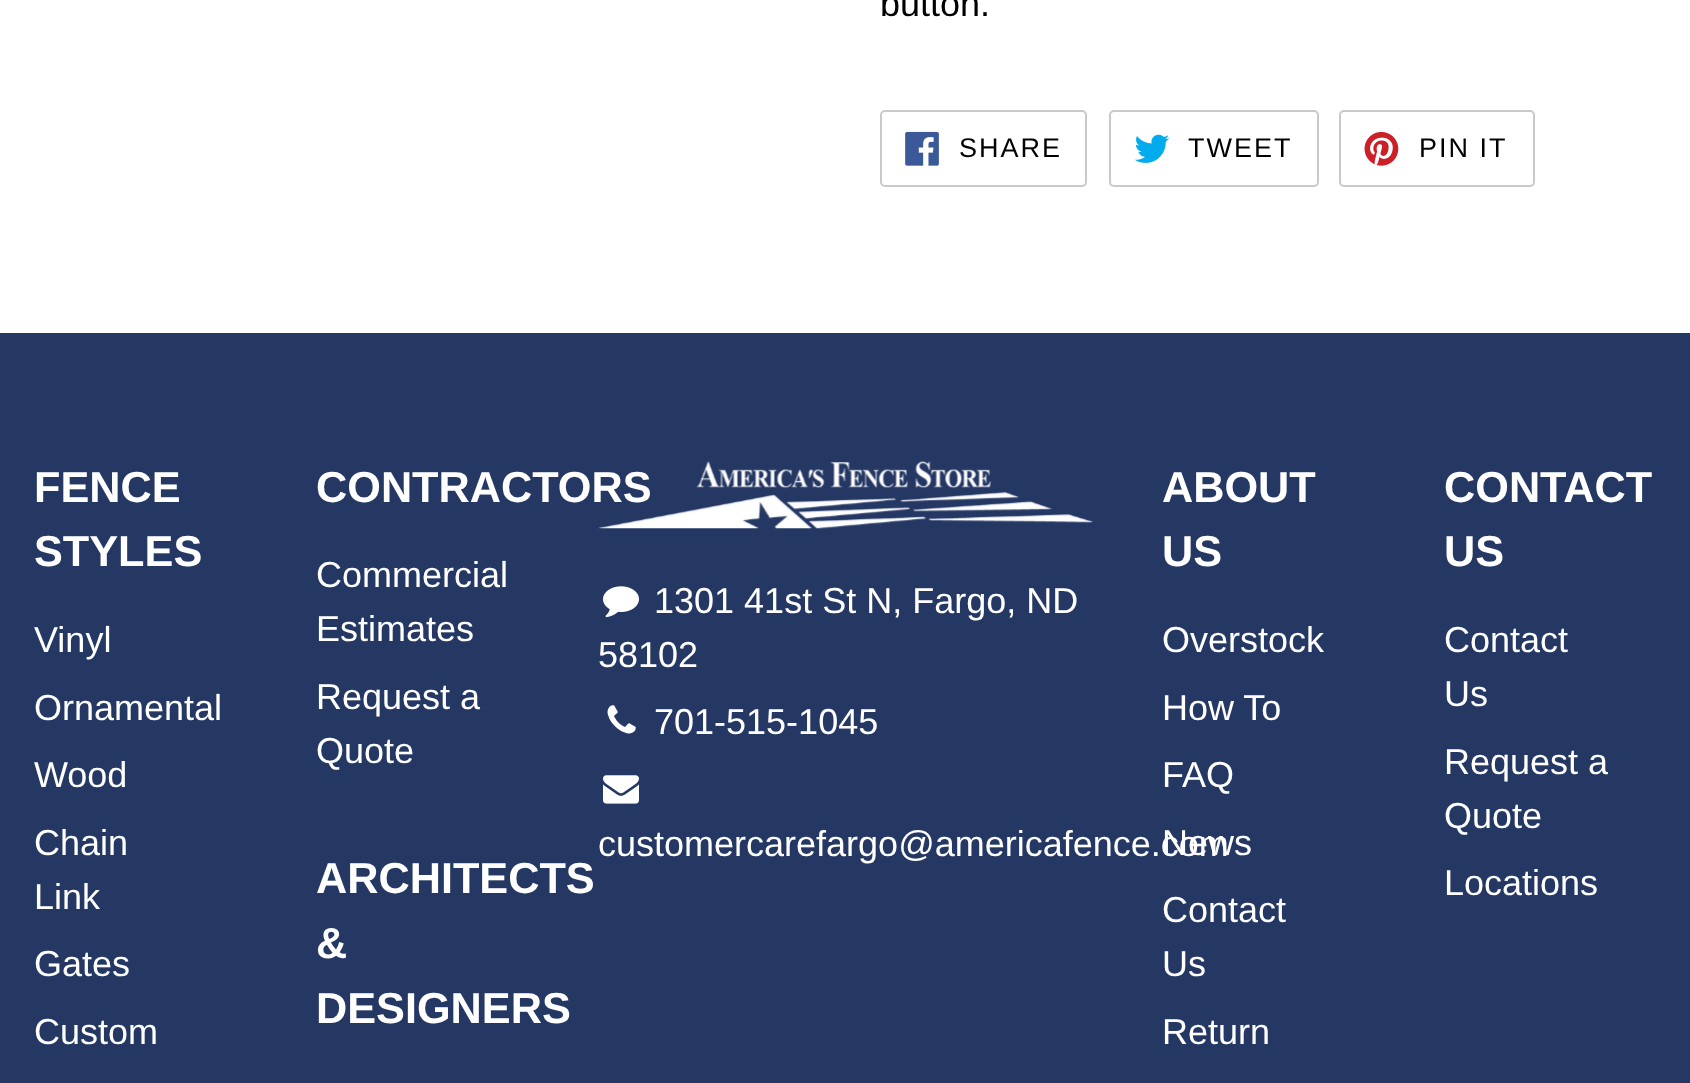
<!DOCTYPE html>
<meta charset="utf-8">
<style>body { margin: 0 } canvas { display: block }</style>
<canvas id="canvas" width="1690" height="1083"></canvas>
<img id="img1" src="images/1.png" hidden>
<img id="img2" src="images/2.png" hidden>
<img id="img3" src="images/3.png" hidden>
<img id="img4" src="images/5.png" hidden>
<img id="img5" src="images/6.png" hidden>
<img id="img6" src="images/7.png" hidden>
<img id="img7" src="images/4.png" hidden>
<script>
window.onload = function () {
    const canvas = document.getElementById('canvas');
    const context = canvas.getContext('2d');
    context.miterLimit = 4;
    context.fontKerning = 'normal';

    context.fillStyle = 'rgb(255, 255, 255)';
    context.fillRect(0, 0, 1690, 1083);
    context.beginPath();
    context.roundRect(881, 111, 205, 75, 4);
    context.strokeStyle = 'rgb(201, 201, 201)';
    context.lineWidth = 2;
    context.stroke();
    context.drawImage(document.getElementById('img1'), 905, 131, 34, 35);
    context.beginPath();
    context.roundRect(1110, 111, 208, 75, 4);
    context.stroke();
    context.drawImage(document.getElementById('img2'), 1134, 134, 35, 29);
    context.beginPath();
    context.roundRect(1340, 111, 194, 75, 4);
    context.stroke();
    context.drawImage(document.getElementById('img3'), 1364, 131, 35, 35);
    context.fillStyle = 'rgb(37, 56, 100)';
    context.fillRect(0, 333, 1690, 750);
    context.drawImage(document.getElementById('img4'), 603, 586, 36, 32);
    context.drawImage(document.getElementById('img5'), 607, 705, 29, 29);
    context.drawImage(document.getElementById('img6'), 603, 775, 36, 29);
    context.font = '36px Liberation Sans';
    context.fillStyle = 'rgb(0, 0, 0)';
    context.fillText('button.', 880, 16);
    context.letterSpacing = '2px';
    context.font = '27px Liberation Sans';
    context.fillText('SHARE', 959, 157);
    context.fillText('TWEET', 1188, 157);
    context.fillText('PIN IT', 1419, 157);
    context.letterSpacing = '0px';
    context.font = 'bold 43.25px Liberation Sans';
    context.fillStyle = 'rgb(255, 255, 255)';
    context.fillText('FENCE', 34, 502);
    context.fillText('STYLES', 34, 566);
    context.font = '36px Liberation Sans';
    context.fillText('Vinyl', 34, 652);
    context.fillText('Ornamental', 34, 720);
    context.fillText('Wood', 34, 787);
    context.fillText('Chain', 34, 855);
    context.fillText('Link', 34, 909);
    context.fillText('Gates', 34, 976);
    context.fillText('Custom', 34, 1044);
    context.font = 'bold 43.25px Liberation Sans';
    context.fillText('CONTRACTORS', 316, 502);
    context.font = '36px Liberation Sans';
    context.fillText('Commercial', 316, 587);
    context.fillText('Estimates', 316, 641);
    context.fillText('Request a', 316, 709);
    context.fillText('Quote', 316, 763);
    context.font = 'bold 43.25px Liberation Sans';
    context.fillText('ARCHITECTS', 316, 893);
    context.fillText('&', 316, 958);
    context.fillText('DESIGNERS', 316, 1023);
    context.drawImage(document.getElementById('img7'), 598, 461, 495, 68);
    context.font = '36px Liberation Sans';
    context.fillText('1301 41st St N, Fargo, ND', 654, 613);
    context.fillText('58102', 598, 667);
    context.fillText('701-515-1045', 654, 734);
    context.fillText('customercarefargo@americafence.com', 598, 856);
    context.font = 'bold 43.25px Liberation Sans';
    context.fillText('ABOUT', 1162, 502);
    context.fillText('US', 1162, 566);
    context.font = '36px Liberation Sans';
    context.fillText('Overstock', 1162, 652);
    context.fillText('How To', 1162, 720);
    context.fillText('FAQ', 1162, 787);
    context.fillText('News', 1162, 855);
    context.fillText('Contact', 1162, 922);
    context.fillText('Us', 1162, 976);
    context.fillText('Return', 1162, 1044);
    context.font = 'bold 43.25px Liberation Sans';
    context.fillText('CONTACT', 1444, 502);
    context.fillText('US', 1444, 566);
    context.font = '36px Liberation Sans';
    context.fillText('Contact', 1444, 652);
    context.fillText('Us', 1444, 706);
    context.fillText('Request a', 1444, 774);
    context.fillText('Quote', 1444, 828);
    context.fillText('Locations', 1444, 895);
};
</script>
